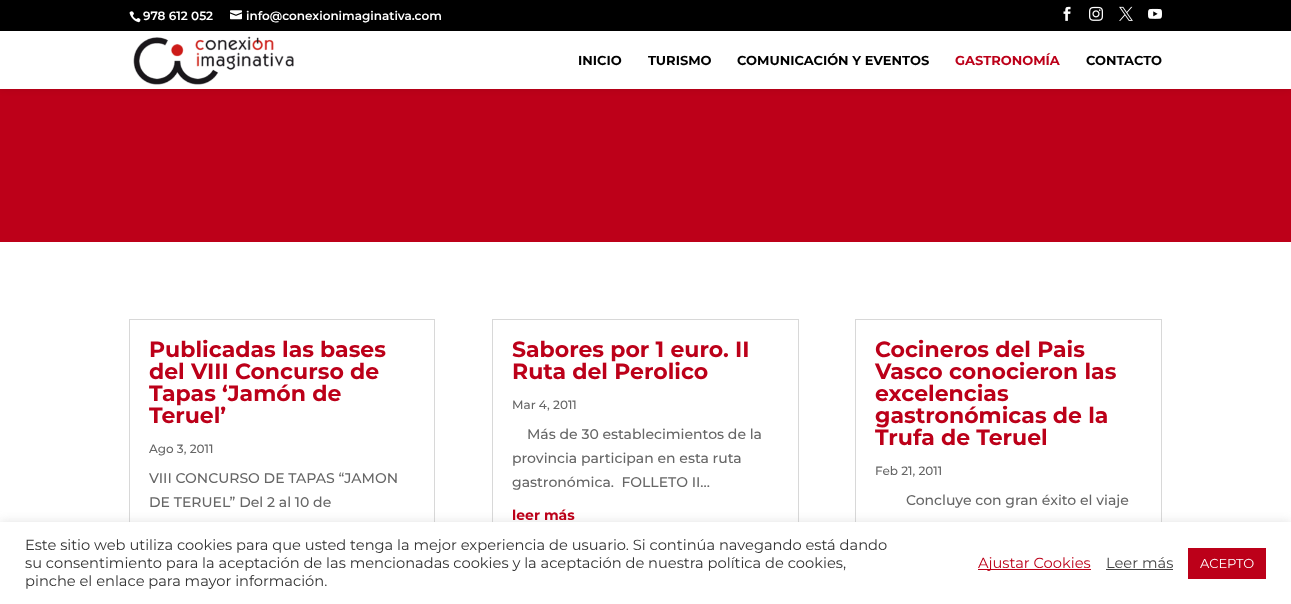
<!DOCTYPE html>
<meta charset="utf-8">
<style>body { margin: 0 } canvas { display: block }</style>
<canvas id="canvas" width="1291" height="604"></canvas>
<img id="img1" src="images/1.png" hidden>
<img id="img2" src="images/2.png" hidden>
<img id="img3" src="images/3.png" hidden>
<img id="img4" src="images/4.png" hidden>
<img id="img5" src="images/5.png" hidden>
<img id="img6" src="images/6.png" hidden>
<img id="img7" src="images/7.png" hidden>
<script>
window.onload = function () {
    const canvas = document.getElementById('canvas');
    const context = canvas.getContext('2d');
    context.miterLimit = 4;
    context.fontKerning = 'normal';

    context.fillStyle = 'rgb(255, 255, 255)';
    context.fillRect(0, 0, 1291, 604);
    context.fillStyle = 'rgb(189, 0, 25)';
    context.fillRect(0, 89, 1291, 153);
    context.fillStyle = 'rgba(0, 0, 0, 0.1)';
    context.filter = 'blur(3.5px)';
    context.beginPath();
    context.rect(0, 31, 1291, 58);
    context.fill();
    context.filter = 'none';
    context.fillStyle = 'rgb(0, 0, 0)';
    context.fillRect(0, 0, 1291, 31);
    context.drawImage(document.getElementById('img1'), 129, 11, 12, 12);
    context.drawImage(document.getElementById('img2'), 230, 10, 12, 10);
    context.drawImage(document.getElementById('img3'), 1063, 6, 8, 15);
    context.drawImage(document.getElementById('img4'), 1089, 6, 14, 15);
    context.drawImage(document.getElementById('img5'), 1119, 6, 14, 15);
    context.drawImage(document.getElementById('img6'), 1148, 8, 14, 11);
    context.fillStyle = 'rgb(255, 255, 255)';
    context.fillRect(0, 31, 1291, 58);
    context.drawImage(document.getElementById('img7'), 133, 36, 161, 49);
    context.strokeStyle = 'rgb(216, 216, 216)';
    context.strokeRect(129.5, 319.5, 305, 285);
    context.strokeRect(492.5, 319.5, 306, 236);
    context.strokeRect(855.5, 319.5, 306, 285);
    context.fillStyle = 'rgba(172, 171, 171, 0.3)';
    context.filter = 'blur(5px)';
    context.beginPath();
    context.rect(0, 521, 1291, 82);
    context.fill();
    context.filter = 'none';
    context.fillStyle = 'rgb(255, 255, 255)';
    context.fillRect(0, 522, 1291, 82);
    context.fillStyle = 'rgb(188, 0, 25)';
    context.fillRect(978, 569, 113, 1);
    context.fillStyle = 'rgb(68, 68, 68)';
    context.fillRect(1106, 569, 67, 1);
    context.fillStyle = 'rgb(188, 0, 25)';
    context.fillRect(1188, 548, 78, 31);
    context.font = '100 12px "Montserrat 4"';
    context.fillStyle = 'rgb(255, 255, 255)';
    context.fillText('978 612 052', 143, 20);
    context.fillText('info@conexionimaginativa.com', 246, 20);
    context.font = '100 13px Montserrat';
    context.fillStyle = 'rgb(0, 0, 0)';
    context.fillText('INICIO', 578, 65);
    context.fillText('TURISMO', 648, 65);
    context.fillText('COMUNICACIÓN Y EVENTOS', 737, 65);
    context.fillStyle = 'rgb(188, 0, 25)';
    context.fillText('GASTRONOMÍA', 955, 65);
    context.fillStyle = 'rgb(0, 0, 0)';
    context.fillText('CONTACTO', 1086, 65);
    context.font = '100 22px Montserrat';
    context.fillStyle = 'rgb(188, 0, 25)';
    context.fillText('Publicadas las bases', 149, 357);
    context.fillText('del VIII Concurso de', 149, 379);
    context.fillText('Tapas ‘Jamón de', 149, 401);
    context.fillText('Teruel’', 149, 423);
    context.font = '100 12px "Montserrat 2"';
    context.fillStyle = 'rgb(102, 102, 102)';
    context.fillText('Ago 3, 2011', 149, 453);
    context.font = '100 14px "Montserrat 2"';
    context.fillText('VIII CONCURSO DE TAPAS “JAMON', 149, 483);
    context.fillText('DE TERUEL” Del 2 al 10 de', 149, 507);
    context.font = '100 22px Montserrat';
    context.fillStyle = 'rgb(188, 0, 25)';
    context.fillText('Sabores por 1 euro. II', 512, 357);
    context.fillText('Ruta del Perolico', 512, 379);
    context.font = '100 12px "Montserrat 2"';
    context.fillStyle = 'rgb(102, 102, 102)';
    context.fillText('Mar 4, 2011', 512, 409);
    context.font = '100 14px "Montserrat 2"';
    context.fillText('Más de 30 establecimientos de la', 527, 439);
    context.fillText('provincia participan en esta ruta', 512, 463);
    context.fillText('gastronómica.  FOLLETO II...', 512, 487);
    context.font = '100 14px Montserrat';
    context.fillStyle = 'rgb(188, 0, 25)';
    context.fillText('leer más', 512, 520);
    context.font = '100 22px Montserrat';
    context.fillText('Cocineros del Pais', 875, 357);
    context.fillText('Vasco conocieron las', 875, 379);
    context.fillText('excelencias', 875, 401);
    context.fillText('gastronómicas de la', 875, 423);
    context.fillText('Trufa de Teruel', 875, 445);
    context.font = '100 12px "Montserrat 2"';
    context.fillStyle = 'rgb(102, 102, 102)';
    context.fillText('Feb 21, 2011', 875, 475);
    context.font = '100 14px "Montserrat 2"';
    context.fillText('Concluye con gran éxito el viaje', 906, 505);
    context.font = '100 14.67px "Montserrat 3"';
    context.fillStyle = 'rgb(51, 51, 51)';
    context.fillText('Este sitio web utiliza cookies para que usted tenga la mejor experiencia de usuario. Si continúa navegando está dando', 25, 550);
    context.fillText('su consentimiento para la aceptación de las mencionadas cookies y la aceptación de nuestra política de cookies,', 25, 568);
    context.fillText('pinche el enlace para mayor información.', 25, 586);
    context.fillStyle = 'rgb(188, 0, 25)';
    context.fillText('Ajustar Cookies', 978, 568);
    context.fillStyle = 'rgb(68, 68, 68)';
    context.fillText('Leer más', 1106, 568);
    context.font = '100 13px "Montserrat 3"';
    context.fillStyle = 'rgb(255, 255, 255)';
    context.fillText('ACEPTO', 1200, 568);
};
</script>
